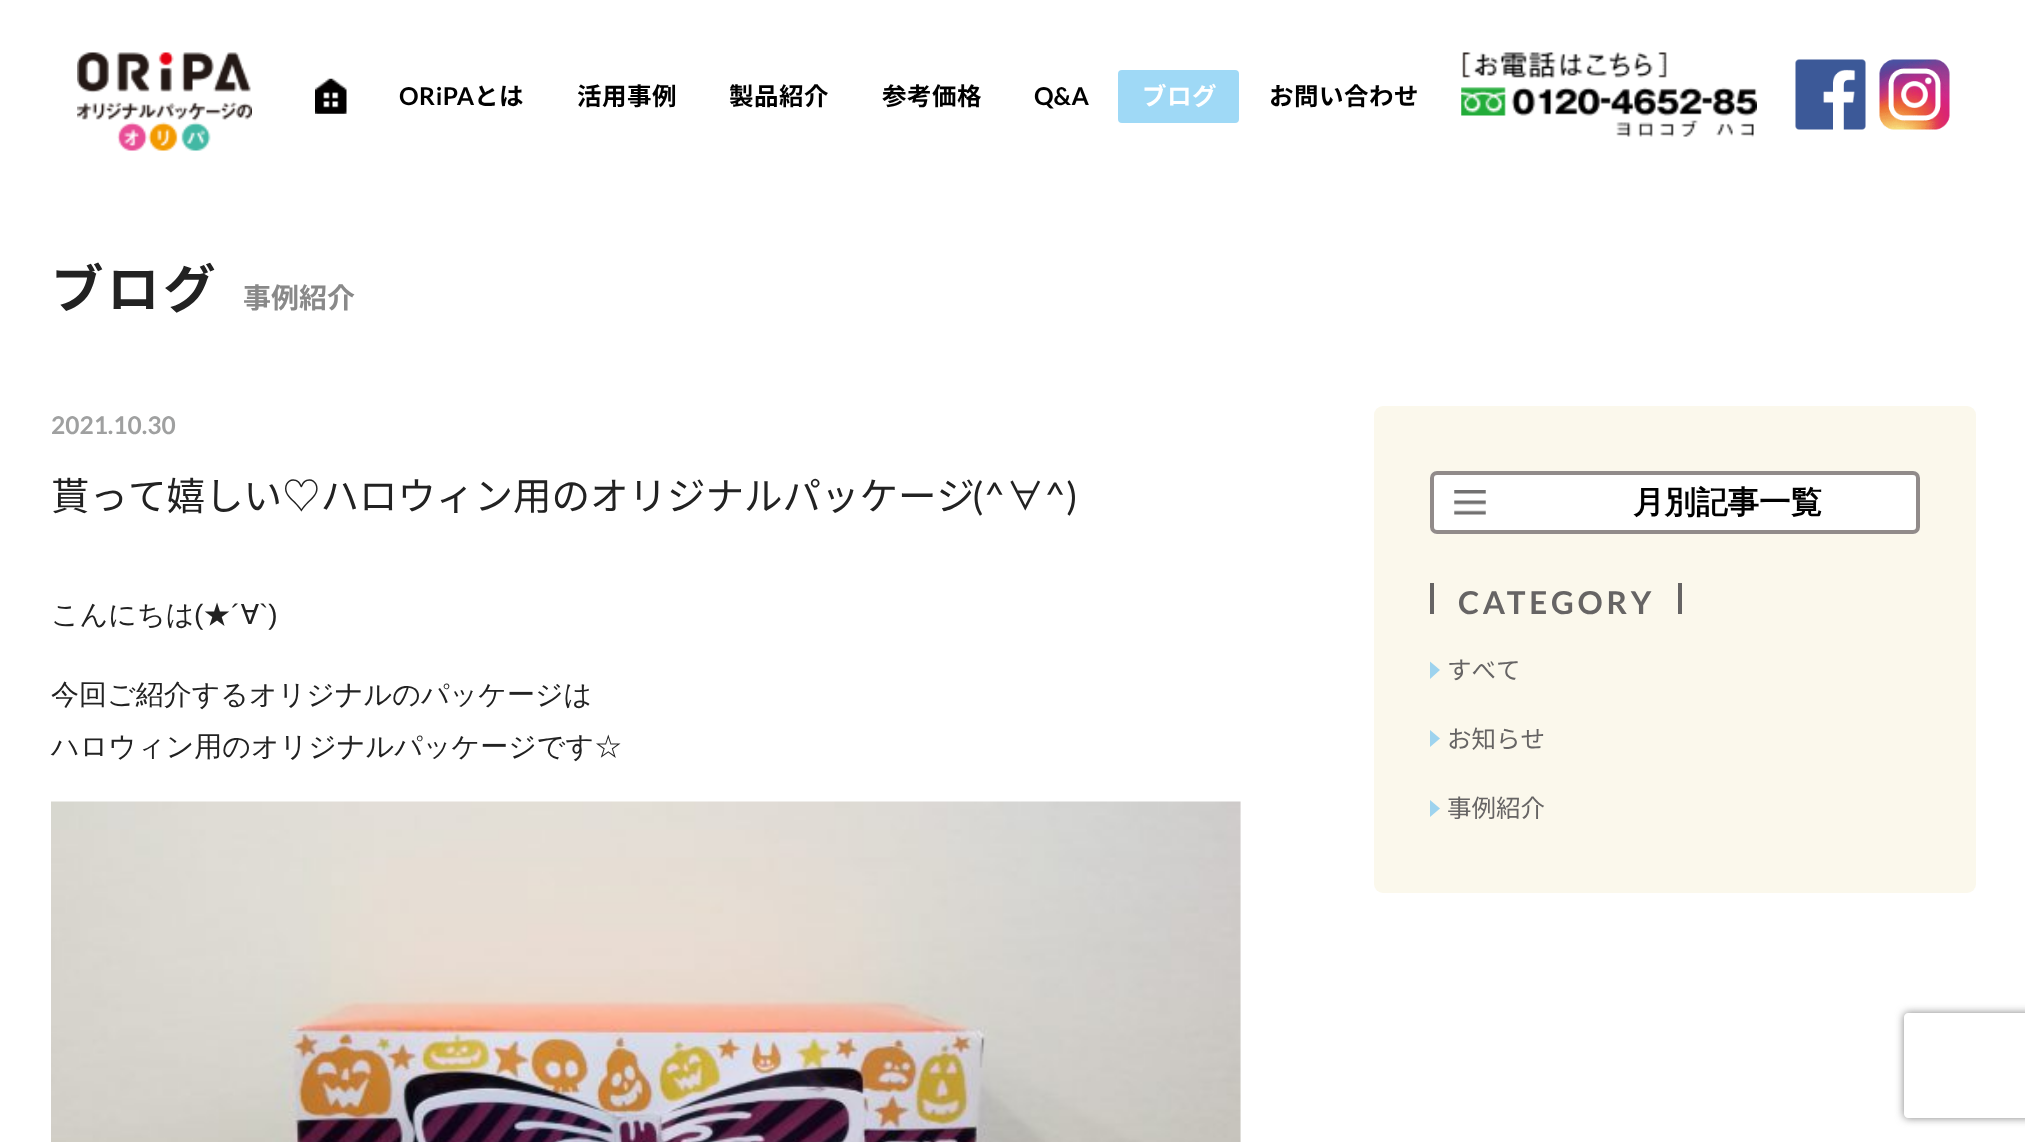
<!DOCTYPE html>
<meta charset="utf-8">
<style>body { margin: 0 } canvas { display: block }</style>
<canvas id="canvas" width="2025" height="1142"></canvas>
<img id="img1" src="images/1.png" hidden>
<img id="img2" src="images/2.png" hidden>
<img id="img3" src="images/3.png" hidden>
<img id="img4" src="images/4.png" hidden>
<img id="img5" src="images/5.png" hidden>
<img id="img6" src="images/6.png" hidden>
<img id="img7" src="images/7.png" hidden>
<script>
window.onload = function () {
    const canvas = document.getElementById('canvas');
    const context = canvas.getContext('2d');
    context.miterLimit = 4;
    context.fontKerning = 'normal';

    context.fillStyle = 'rgb(255, 255, 255)';
    context.fillRect(0, 0, 2025, 1142);
    context.drawImage(document.getElementById('img1'), 77, 52, 175, 99);
    context.drawImage(document.getElementById('img2'), 315, 78, 32, 36);
    context.fillStyle = 'rgb(159, 217, 246)';
    context.beginPath();
    context.roundRect(1118, 70, 121, 53, 4);
    context.fill();
    context.drawImage(document.getElementById('img3'), 1461, 52, 296, 85);
    context.drawImage(document.getElementById('img4'), 1795, 59, 71, 71);
    context.drawImage(document.getElementById('img5'), 1879, 59, 71, 71);
    context.drawImage(document.getElementById('img6'), 51, 801, 1190, 341);
    context.fillStyle = 'rgb(251, 248, 236)';
    context.beginPath();
    context.roundRect(1374, 406, 602, 487, 9);
    context.fill();
    context.fillStyle = 'rgb(255, 255, 255)';
    context.beginPath();
    context.roundRect(1430, 471, 490, 63, 7);
    context.fill();
    context.drawImage(document.getElementById('img7'), 1454, 490, 32, 25);
    context.beginPath();
    context.roundRect(1432, 473, 486, 59, 5);
    context.strokeStyle = 'rgb(145, 139, 138)';
    context.lineWidth = 4;
    context.stroke();
    context.fillStyle = 'rgb(102, 100, 100)';
    context.fillRect(1430, 583, 4, 31);
    context.fillRect(1678, 583, 4, 31);
    context.fillStyle = 'rgb(157, 211, 238)';
    context.beginPath();
    context.moveTo(1430, 679);
    context.lineTo(1430, 661.5);
    context.lineTo(1440, 670);
    context.closePath();
    context.fill();
    context.beginPath();
    context.moveTo(1430, 747);
    context.lineTo(1430, 730);
    context.lineTo(1440, 738.5);
    context.closePath();
    context.fill();
    context.beginPath();
    context.moveTo(1430, 817);
    context.lineTo(1430, 800);
    context.lineTo(1440, 808.5);
    context.closePath();
    context.fill();
    context.save();
    context.beginPath();
    context.moveTo(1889, 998);
    context.lineTo(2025, 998);
    context.lineTo(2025, 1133);
    context.lineTo(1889, 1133);
    context.closePath();
    context.moveTo(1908, 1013);
    context.lineTo(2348, 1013);
    context.bezierCurveTo(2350, 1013, 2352, 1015, 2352, 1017);
    context.lineTo(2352, 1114);
    context.bezierCurveTo(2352, 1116, 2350, 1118, 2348, 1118);
    context.lineTo(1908, 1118);
    context.bezierCurveTo(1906, 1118, 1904, 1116, 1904, 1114);
    context.lineTo(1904, 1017);
    context.bezierCurveTo(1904, 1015, 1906, 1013, 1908, 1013);
    context.closePath();
    context.clip('evenodd');
    context.fillStyle = 'rgb(128, 128, 128)';
    context.filter = 'blur(4.5px)';
    context.beginPath();
    context.roundRect(1904, 1013, 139, 105, 4);
    context.fill();
    context.filter = 'none';
    context.restore();
    context.letterSpacing = '0.5px';
    context.font = 'bold 24.5px Lato';
    context.fillStyle = 'rgb(0, 0, 0)';
    context.fillText('ORiPA', 399, 105);
    context.font = 'bold 24.5px Noto Sans JP';
    context.fillText('とは', 474, 105);
    context.fillText('活用事例', 577, 105);
    context.fillText('製品紹介', 729, 105);
    context.fillText('参考価格', 882, 105);
    context.font = 'bold 24.5px Lato';
    context.fillText('Q&A', 1034, 105);
    context.font = 'bold 24.5px Noto Sans JP';
    context.fillStyle = 'rgb(255, 255, 255)';
    context.fillText('ブログ', 1142, 105);
    context.fillStyle = 'rgb(0, 0, 0)';
    context.fillText('お問い合わせ', 1269, 105);
    context.letterSpacing = '3.5px';
    context.font = 'bold 52.5px Noto Sans JP';
    context.fillStyle = 'rgb(34, 34, 34)';
    context.fillText('ブログ', 51, 308);
    context.letterSpacing = '0px';
    context.font = 'bold 28px Noto Sans JP';
    context.fillStyle = 'rgb(137, 137, 137)';
    context.fillText('事例紹介', 243, 308);
    context.font = 'bold 24.5px Lato';
    context.fillStyle = 'rgb(159, 160, 160)';
    context.fillText('2021.10.30', 51, 434);
    context.font = '38.5px Noto Sans JP';
    context.fillStyle = 'rgb(34, 34, 34)';
    context.fillText('貰って嬉しい♡ハロウィン用のオリジナルパッケージ', 51, 510);
    context.font = '38.5px Lato';
    context.fillText('(^', 972, 510);
    context.font = '38.5px Noto Sans JP';
    context.fillText('∀', 1006, 510);
    context.font = '38.5px Lato';
    context.fillText('^)', 1044, 510);
    context.font = '500 28px WenQuanYi Zen Hei';
    context.fillText('こんにちは', 51, 624);
    context.font = '28px Liberation Sans';
    context.fillText('(', 194, 624);
    context.font = '500 28px WenQuanYi Zen Hei';
    context.fillText('★', 203, 624);
    context.font = '28px Liberation Sans';
    context.fillText('´', 231, 624);
    context.font = '500 28px WenQuanYi Zen Hei';
    context.fillText('∀', 241, 624);
    context.font = '28px Liberation Sans';
    context.fillText('`)', 259, 624);
    context.font = '500 28px WenQuanYi Zen Hei';
    context.fillText('今回ご紹介するオリジナルのパッケージは', 51, 704);
    context.fillText('ハロウィン用のオリジナルパッケージです☆', 51, 756);
    context.font = 'bold 31.5px WenQuanYi Zen Hei';
    context.fillStyle = 'rgb(0, 0, 0)';
    context.fillText('月別記事一覧', 1633, 513);
    context.letterSpacing = '3.75px';
    context.font = 'bold 31.5px Lato';
    context.fillStyle = 'rgb(102, 100, 100)';
    context.fillText('CATEGORY', 1458, 614);
    context.letterSpacing = '0px';
    context.font = '24.5px Noto Sans JP';
    context.fillText('すべて', 1447, 679);
    context.fillText('お知らせ', 1447, 748);
    context.fillText('事例紹介', 1447, 817);
};
</script>
